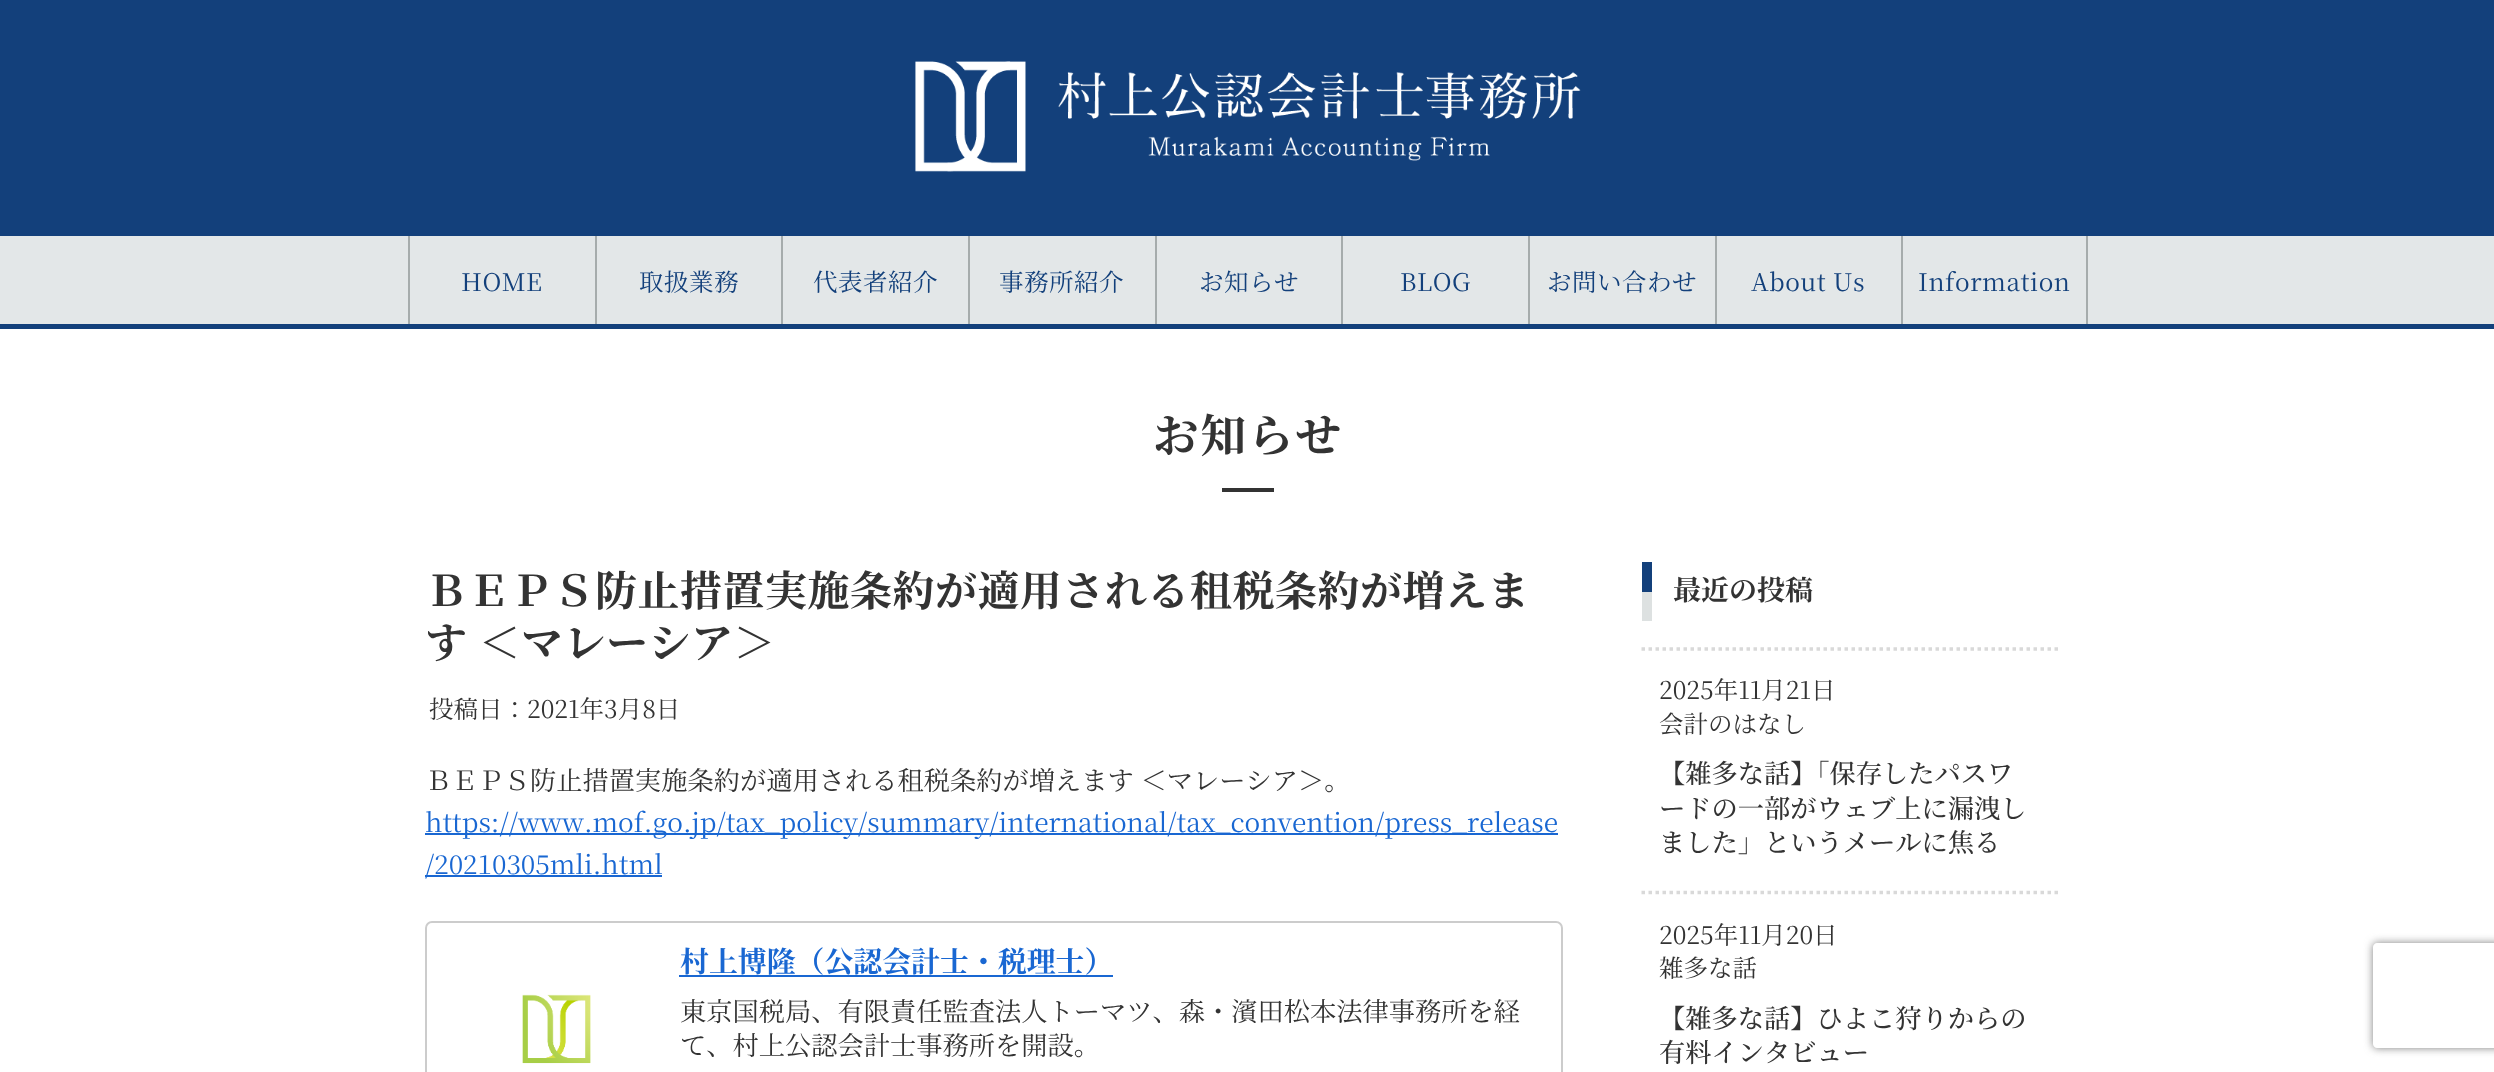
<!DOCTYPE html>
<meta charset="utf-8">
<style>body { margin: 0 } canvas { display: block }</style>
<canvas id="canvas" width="2494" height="1072"></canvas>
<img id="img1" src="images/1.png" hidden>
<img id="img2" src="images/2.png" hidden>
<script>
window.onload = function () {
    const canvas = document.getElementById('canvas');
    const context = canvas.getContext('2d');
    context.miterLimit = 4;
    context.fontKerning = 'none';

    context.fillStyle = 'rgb(255, 255, 255)';
    context.fillRect(0, 0, 2494, 1072);
    context.fillStyle = 'rgb(19, 64, 123)';
    context.fillRect(0, 0, 2494, 236);
    context.drawImage(document.getElementById('img1'), 915, 61, 666, 111);
    context.fillStyle = 'rgb(227, 231, 232)';
    context.fillRect(0, 236, 2494, 88);
    context.fillStyle = 'rgb(166, 172, 172)';
    context.fillRect(408, 236, 2, 88);
    context.fillRect(595, 236, 2, 88);
    context.fillRect(781, 236, 2, 88);
    context.fillRect(968, 236, 2, 88);
    context.fillRect(1155, 236, 2, 88);
    context.fillRect(1341, 236, 2, 88);
    context.fillRect(1528, 236, 2, 88);
    context.fillRect(1715, 236, 2, 88);
    context.fillRect(2086, 236, 2, 88);
    context.fillRect(1901, 236, 2, 88);
    context.fillStyle = 'rgb(19, 64, 123)';
    context.fillRect(0, 324, 2494, 5);
    context.fillStyle = 'rgb(51, 51, 51)';
    context.fillRect(1222, 488, 52, 4);
    context.fillStyle = 'rgb(25, 103, 210)';
    context.fillRect(425, 833, 1133, 2);
    context.fillRect(425, 875, 237, 2);
    context.beginPath();
    context.roundRect(426, 922, 1136, 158, 6);
    context.strokeStyle = 'rgb(204, 204, 204)';
    context.lineWidth = 2;
    context.stroke();
    context.drawImage(document.getElementById('img2'), 522, 994, 69, 70);
    context.fillRect(679, 975, 434, 2);
    context.fillStyle = 'rgb(19, 64, 123)';
    context.fillRect(1642, 562, 10, 30);
    context.fillStyle = 'rgb(221, 225, 225)';
    context.fillRect(1642, 592, 10, 29);
    context.beginPath();
    context.moveTo(1641.5, 649);
    context.lineTo(2061.5, 649);
    context.strokeStyle = 'rgb(217, 217, 217)';
    context.lineWidth = 3.5;
    context.setLineDash([3.5, 3.5]);
    context.stroke();
    context.beginPath();
    context.moveTo(1641.5, 892.5);
    context.lineTo(2061.5, 892.5);
    context.stroke();
    context.save();
    context.beginPath();
    context.moveTo(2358, 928);
    context.lineTo(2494, 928);
    context.lineTo(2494, 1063);
    context.lineTo(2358, 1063);
    context.closePath();
    context.moveTo(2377, 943);
    context.lineTo(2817, 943);
    context.bezierCurveTo(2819, 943, 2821, 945, 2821, 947);
    context.lineTo(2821, 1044);
    context.bezierCurveTo(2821, 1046, 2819, 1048, 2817, 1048);
    context.lineTo(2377, 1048);
    context.bezierCurveTo(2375, 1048, 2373, 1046, 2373, 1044);
    context.lineTo(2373, 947);
    context.bezierCurveTo(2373, 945, 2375, 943, 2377, 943);
    context.closePath();
    context.clip('evenodd');
    context.fillStyle = 'rgb(128, 128, 128)';
    context.filter = 'blur(4.5px)';
    context.beginPath();
    context.roundRect(2373, 943, 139, 105, 4);
    context.fill();
    context.filter = 'none';
    context.restore();
    context.letterSpacing = '0.5px';
    context.font = '24.5px Noto Serif JP';
    context.fillStyle = 'rgb(19, 64, 123)';
    context.fillText('HOME', 461, 291);
    context.fillText('取扱業務', 639, 291);
    context.fillText('代表者紹介', 813, 291);
    context.fillText('事務所紹介', 999, 291);
    context.fillText('お知らせ', 1199, 291);
    context.fillText('BLOG', 1400, 291);
    context.fillText('お問い合わせ', 1547, 291);
    context.fillText('About Us', 1751, 291);
    context.fillText('Information', 1918, 291);
    context.letterSpacing = '2px';
    context.font = 'bold 45.5px Noto Serif JP';
    context.fillStyle = 'rgb(51, 51, 51)';
    context.fillText('お知らせ', 1153, 452);
    context.letterSpacing = '0.5px';
    context.font = 'bold 42px Noto Serif JP';
    context.fillText('ＢＥＰＳ防止措置実施条約が適用される租税条約が増えま', 425, 606);
    context.fillText('す ＜マレーシア＞', 425, 658);
    context.letterSpacing = '0px';
    context.font = '24.5px Noto Serif JP';
    context.fillText('投稿日：2021年3月8日', 429, 718);
    context.font = '26.25px Noto Serif JP';
    context.fillText('ＢＥＰＳ防止措置実施条約が適用される租税条約が増えます ＜マレーシア＞。', 425, 790);
    context.fillStyle = 'rgb(25, 103, 210)';
    context.fillText('https://www.mof.go.jp/tax_policy/summary/international/tax_convention/press_release', 425, 832);
    context.fillText('/20210305mli.html', 425, 874);
    context.font = 'bold 28.9px Noto Serif JP';
    context.fillText('村上博隆（公認会計士・税理士）', 680, 972);
    context.font = '26.25px Noto Serif JP';
    context.fillStyle = 'rgb(51, 51, 51)';
    context.fillText('東京国税局、有限責任監査法人トーマツ、森・濱田松本法律事務所を経', 680, 1021);
    context.fillText('て、村上公認会計士事務所を開設。', 680, 1055);
    context.font = 'bold 28px Noto Serif JP';
    context.fillText('最近の投稿', 1673, 600);
    context.font = '24.5px Noto Serif JP';
    context.fillText('2025年11月21日', 1659, 699);
    context.fillText('会計のはなし', 1659, 733);
    context.font = '500 26.25px Noto Serif JP';
    context.fillText('【雑多な話】「保存したパスワ', 1659, 783);
    context.fillText('ードの一部がウェブ上に漏洩し', 1659, 818);
    context.fillText('ました」というメールに焦る', 1659, 852);
    context.font = '24.5px Noto Serif JP';
    context.fillText('2025年11月20日', 1659, 944);
    context.fillText('雑多な話', 1659, 977);
    context.font = '500 26.25px Noto Serif JP';
    context.fillText('【雑多な話】ひよこ狩りからの', 1659, 1028);
    context.fillText('有料インタビュー', 1659, 1062);
};
</script>
